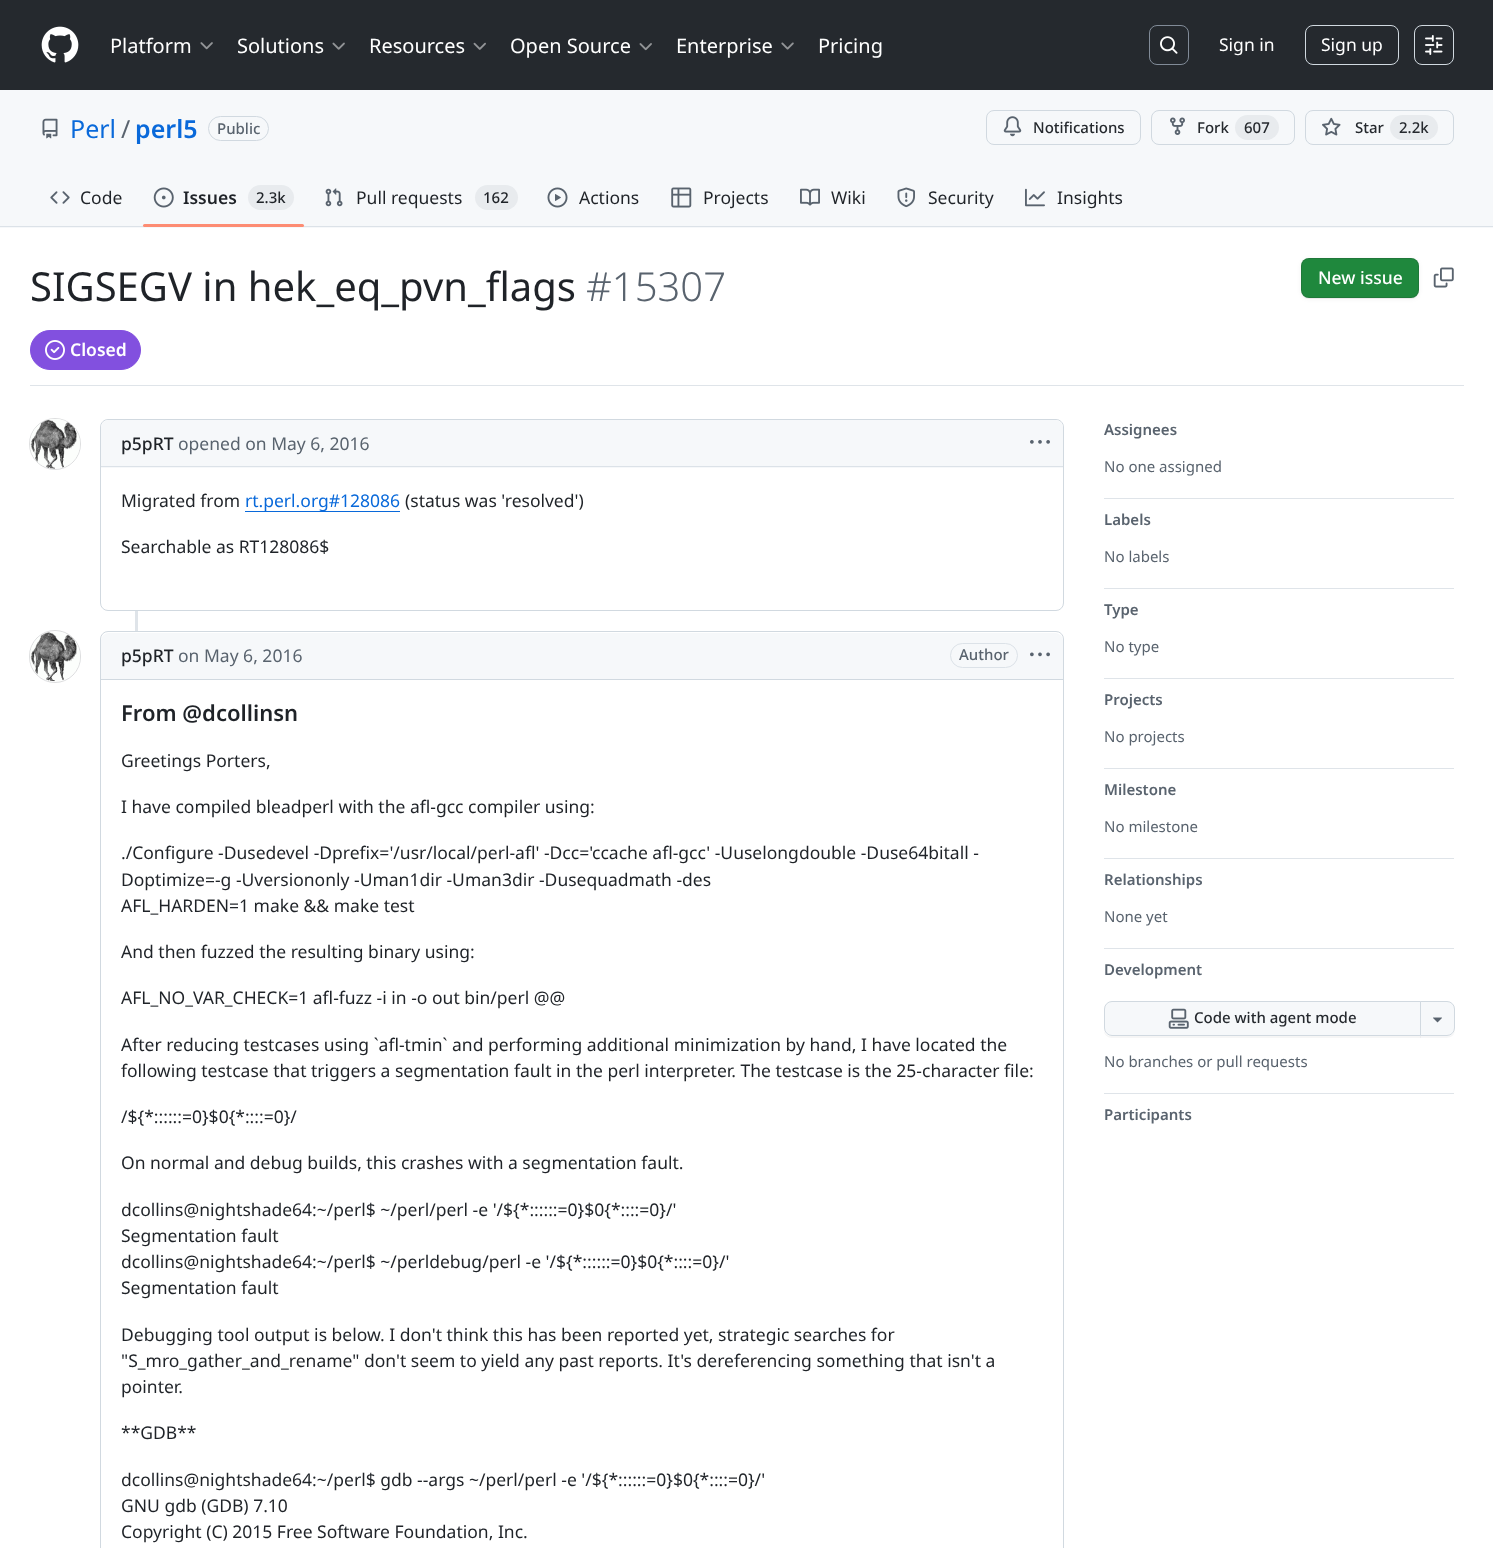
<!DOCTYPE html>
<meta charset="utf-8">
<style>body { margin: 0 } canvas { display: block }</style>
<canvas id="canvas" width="1493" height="1548"></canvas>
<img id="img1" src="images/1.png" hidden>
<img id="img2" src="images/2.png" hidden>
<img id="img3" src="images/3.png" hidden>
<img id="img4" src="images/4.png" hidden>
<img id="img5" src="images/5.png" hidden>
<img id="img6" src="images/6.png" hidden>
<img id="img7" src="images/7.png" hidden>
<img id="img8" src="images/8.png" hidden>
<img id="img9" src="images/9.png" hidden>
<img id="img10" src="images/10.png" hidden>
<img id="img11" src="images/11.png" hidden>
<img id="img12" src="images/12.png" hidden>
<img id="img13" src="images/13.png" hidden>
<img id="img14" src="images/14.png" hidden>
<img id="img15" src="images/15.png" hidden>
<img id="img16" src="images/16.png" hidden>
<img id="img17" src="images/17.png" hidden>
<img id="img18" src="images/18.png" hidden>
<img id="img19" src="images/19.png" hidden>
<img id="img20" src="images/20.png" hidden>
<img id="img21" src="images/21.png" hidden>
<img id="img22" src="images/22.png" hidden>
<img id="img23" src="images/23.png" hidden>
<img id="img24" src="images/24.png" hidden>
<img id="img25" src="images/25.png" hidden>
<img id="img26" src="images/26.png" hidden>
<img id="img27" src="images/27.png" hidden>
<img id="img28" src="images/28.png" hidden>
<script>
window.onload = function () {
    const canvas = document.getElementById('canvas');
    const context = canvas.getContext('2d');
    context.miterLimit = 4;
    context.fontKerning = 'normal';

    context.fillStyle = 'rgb(255, 255, 255)';
    context.fillRect(0, 0, 1493, 1548);
    context.fillStyle = 'rgb(37, 41, 46)';
    context.fillRect(0, 0, 1493, 90);
    context.drawImage(document.getElementById('img1'), 41, 26, 38, 37);
    context.drawImage(document.getElementById('img2'), 200, 42, 13, 8);
    context.drawImage(document.getElementById('img3'), 332, 42, 13, 8);
    context.drawImage(document.getElementById('img4'), 473, 42, 13, 8);
    context.drawImage(document.getElementById('img5'), 639, 43, 13, 8);
    context.drawImage(document.getElementById('img6'), 781, 42, 13, 8);
    context.beginPath();
    context.roundRect(1149.5, 25.5, 39, 39, 7.5);
    context.strokeStyle = 'rgb(129, 139, 152)';
    context.stroke();
    context.drawImage(document.getElementById('img7'), 1160, 36, 18, 18);
    context.beginPath();
    context.roundRect(1305.5, 25.5, 93, 39, 7.5);
    context.strokeStyle = 'rgb(209, 217, 224)';
    context.stroke();
    context.beginPath();
    context.roundRect(1414.5, 25.5, 39, 39, 7.5);
    context.stroke();
    context.drawImage(document.getElementById('img8'), 1425, 35, 18, 20);
    context.fillStyle = 'rgb(246, 248, 250)';
    context.fillRect(0, 90, 1493, 138);
    context.drawImage(document.getElementById('img9'), 42, 118, 16, 21);
    context.beginPath();
    context.roundRect(208.5, 116.5, 60, 24, 12);
    context.stroke();
    context.beginPath();
    context.roundRect(986.5, 110.5, 154, 34, 7.5);
    context.stroke();
    context.drawImage(document.getElementById('img10'), 1003, 116, 19, 21);
    context.beginPath();
    context.roundRect(1151.5, 110.5, 143, 34, 7.5);
    context.stroke();
    context.drawImage(document.getElementById('img11'), 1170, 117, 15, 18);
    context.fillStyle = 'rgb(232, 235, 238)';
    context.beginPath();
    context.roundRect(1235, 115, 44, 25, 12.5);
    context.fill();
    context.beginPath();
    context.roundRect(1305.5, 110.5, 148, 34, 7.5);
    context.stroke();
    context.drawImage(document.getElementById('img12'), 1322, 117, 19, 19);
    context.beginPath();
    context.roundRect(1390, 115, 48, 25, 12.5);
    context.fill();
    context.fillStyle = 'rgb(220, 226, 232)';
    context.fillRect(0, 226, 1493, 1);
    context.drawImage(document.getElementById('img13'), 50, 191, 20, 13);
    context.drawImage(document.getElementById('img14'), 153, 187, 21, 21);
    context.fillStyle = 'rgb(232, 235, 238)';
    context.beginPath();
    context.roundRect(248, 185, 46, 25, 12.5);
    context.fill();
    context.fillStyle = 'rgb(253, 140, 115)';
    context.beginPath();
    context.roundRect(143, 224, 161, 3, 1.5);
    context.fill();
    context.drawImage(document.getElementById('img15'), 325, 188, 18, 19);
    context.fillStyle = 'rgb(232, 235, 238)';
    context.beginPath();
    context.roundRect(475, 185, 43, 25, 12.5);
    context.fill();
    context.drawImage(document.getElementById('img16'), 547, 187, 21, 21);
    context.drawImage(document.getElementById('img17'), 671, 187, 21, 21);
    context.drawImage(document.getElementById('img18'), 800, 188, 20, 18);
    context.drawImage(document.getElementById('img19'), 897, 187, 18, 21);
    context.drawImage(document.getElementById('img20'), 1025, 188, 20, 19);
    context.fillStyle = 'rgba(31, 35, 40, 0.06)';
    context.filter = 'blur(2px)';
    context.beginPath();
    context.roundRect(1301, 259, 118, 40, 8);
    context.fill();
    context.filter = 'none';
    context.filter = 'blur(0.5px)';
    context.beginPath();
    context.roundRect(1301, 259, 118, 40, 8);
    context.fill();
    context.filter = 'none';
    context.fillStyle = 'rgb(31, 136, 61)';
    context.beginPath();
    context.roundRect(1301, 258, 118, 40, 8);
    context.fill();
    context.beginPath();
    context.roundRect(1301.5, 258.5, 117, 39, 7.5);
    context.strokeStyle = 'rgba(31, 35, 40, 0.15)';
    context.stroke();
    context.drawImage(document.getElementById('img21'), 1433, 267, 21, 21);
    context.fillStyle = 'rgb(223, 228, 233)';
    context.fillRect(30, 385, 1434, 1);
    context.fillStyle = 'rgb(130, 80, 223)';
    context.beginPath();
    context.roundRect(30.5, 330.5, 110, 39, 19.5);
    context.fill();
    context.strokeStyle = 'rgb(130, 80, 223)';
    context.stroke();
    context.drawImage(document.getElementById('img22'), 45, 340, 20, 20);
    context.beginPath();
    context.arc(55, 444, 25.5, 0, 2 * Math.PI);
    context.strokeStyle = 'rgb(221, 222, 223)';
    context.stroke();
    context.drawImage(document.getElementById('img23'), 30, 419, 50, 50);
    context.beginPath();
    context.roundRect(100.5, 419.5, 963, 191, 7.5);
    context.strokeStyle = 'rgb(209, 217, 224)';
    context.stroke();
    context.fillStyle = 'rgb(246, 248, 250)';
    context.beginPath();
    context.roundRect(101, 420, 962, 48, [8, 8, 0, 0]);
    context.fill();
    context.fillStyle = 'rgb(220, 226, 232)';
    context.fillRect(101, 466, 962, 1);
    context.drawImage(document.getElementById('img24'), 1030, 440, 20, 4);
    context.fillStyle = 'rgb(9, 105, 218)';
    context.fillRect(245, 511, 155, 1);
    context.beginPath();
    context.roundRect(29.5, 630.5, 51, 52, 25.5);
    context.strokeStyle = 'rgb(221, 222, 223)';
    context.stroke();
    context.drawImage(document.getElementById('img25'), 30, 632, 50, 50);
    context.fillStyle = 'rgb(223, 228, 233)';
    context.fillRect(135, 611, 3, 20);
    context.beginPath();
    context.roundRect(100.5, 631.5, 963, 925, 7.5);
    context.strokeStyle = 'rgb(209, 217, 224)';
    context.stroke();
    context.fillStyle = 'rgb(246, 248, 250)';
    context.beginPath();
    context.roundRect(101, 633, 962, 47, [8, 8, 0, 0]);
    context.fill();
    context.fillStyle = 'rgb(209, 217, 224)';
    context.fillRect(101, 679, 962, 1);
    context.beginPath();
    context.roundRect(950.5, 643.5, 67, 24, 12);
    context.strokeStyle = 'rgb(220, 226, 232)';
    context.stroke();
    context.drawImage(document.getElementById('img26'), 1030, 652, 20, 5);
    context.fillStyle = 'rgb(223, 228, 233)';
    context.fillRect(1104, 498, 350, 1);
    context.fillRect(1104, 588, 350, 1);
    context.fillRect(1104, 678, 350, 1);
    context.fillRect(1104, 768, 350, 1);
    context.fillRect(1104, 858, 350, 1);
    context.fillRect(1104, 948, 350, 1);
    context.fillStyle = 'rgb(246, 246, 246)';
    context.beginPath();
    context.moveTo(1104, 1031);
    context.bezierCurveTo(1104, 1035, 1108, 1038, 1112, 1038);
    context.lineTo(1421, 1038);
    context.lineTo(1421, 1036);
    context.lineTo(1111, 1036);
    context.bezierCurveTo(1108, 1036, 1105, 1034, 1104, 1031);
    context.closePath();
    context.fill();
    context.fillStyle = 'rgb(246, 248, 250)';
    context.beginPath();
    context.roundRect(1104.5, 1001.5, 316, 34, [7.5, 0, 0, 7.5]);
    context.fill();
    context.strokeStyle = 'rgb(209, 217, 224)';
    context.stroke();
    context.drawImage(document.getElementById('img27'), 1168, 1008, 21, 21);
    context.fillStyle = 'rgba(31, 35, 40, 0.04)';
    context.beginPath();
    context.moveTo(1420, 1036);
    context.lineTo(1420, 1038);
    context.lineTo(1438, 1038);
    context.bezierCurveTo(1446, 1038, 1455, 1039.5, 1455, 1029);
    context.bezierCurveTo(1455, 1033, 1451.5, 1036, 1447.5, 1036);
    context.closePath();
    context.fill();
    context.fillStyle = 'rgb(246, 248, 250)';
    context.beginPath();
    context.roundRect(1420.5, 1001.5, 34, 34, [0, 7.5, 7.5, 0]);
    context.fill();
    context.stroke();
    context.drawImage(document.getElementById('img28'), 1433, 1017, 9, 6);
    context.fillStyle = 'rgb(223, 228, 233)';
    context.fillRect(1104, 1093, 350, 1);
    context.font = '20px Noto Sans';
    context.fillStyle = 'rgb(255, 255, 255)';
    context.fillText('Platform', 110, 53);
    context.fillText('Solutions', 237, 53);
    context.fillText('Resources', 369, 53);
    context.fillText('Open Source', 510, 53);
    context.fillText('Enterprise', 676, 53);
    context.fillText('Pricing', 818, 53);
    context.font = '17.5px Noto Sans';
    context.fillText('Sign in', 1219, 51);
    context.fillText('Sign up', 1321, 51);
    context.font = '25px Noto Sans';
    context.fillStyle = 'rgb(9, 105, 218)';
    context.fillText('Perl', 70, 138);
    context.fillStyle = 'rgb(89, 99, 110)';
    context.fillText('/', 121, 138);
    context.font = '600 25px Noto Sans';
    context.fillStyle = 'rgb(9, 105, 218)';
    context.fillText('perl5', 135, 138);
    context.font = '500 15px Noto Sans';
    context.fillStyle = 'rgb(89, 99, 110)';
    context.fillText('Public', 217, 134);
    context.fillStyle = 'rgb(37, 41, 46)';
    context.fillText('Notifications', 1033, 133);
    context.fillText('Fork', 1197, 133);
    context.fillText('607', 1244, 133);
    context.fillText('Star', 1355, 133);
    context.fillText('2.2k', 1399, 133);
    context.font = '17.5px Noto Sans';
    context.fillStyle = 'rgb(31, 35, 40)';
    context.fillText('Code', 80, 204);
    context.font = '600 17.5px Noto Sans';
    context.fillText('Issues', 183, 204);
    context.font = '500 15px Noto Sans';
    context.fillText('2.3k', 256, 203);
    context.font = '17.5px Noto Sans';
    context.fillText('Pull requests', 356, 204);
    context.font = '500 15px Noto Sans';
    context.fillText('162', 483, 203);
    context.font = '17.5px Noto Sans';
    context.fillText('Actions', 579, 204);
    context.fillText('Projects', 703, 204);
    context.fillText('Wiki', 831, 204);
    context.fillText('Security', 928, 204);
    context.fillText('Insights', 1057, 204);
    context.font = '40px Noto Sans';
    context.fillText('SIGSEGV in hek_eq_pvn_flags', 30, 301);
    context.font = '300 40px Noto Sans';
    context.fillStyle = 'rgb(89, 99, 110)';
    context.fillText('#15307', 586, 301);
    context.font = '500 17.5px Noto Sans';
    context.fillStyle = 'rgb(255, 255, 255)';
    context.fillText('New issue', 1318, 284);
    context.font = '600 17.5px Noto Sans';
    context.fillText('Closed', 70, 356);
    context.font = '500 17.5px Noto Sans';
    context.fillStyle = 'rgb(31, 35, 40)';
    context.fillText('p5pRT', 121, 450);
    context.font = '17.5px Noto Sans';
    context.fillStyle = 'rgb(89, 99, 110)';
    context.fillText('opened on May 6, 2016', 178, 450);
    context.fillStyle = 'rgb(31, 35, 40)';
    context.fillText('Migrated from', 121, 507);
    context.fillStyle = 'rgb(9, 105, 218)';
    context.fillText('rt.perl.org#128086', 245, 507);
    context.fillStyle = 'rgb(31, 35, 40)';
    context.fillText('(status was \'resolved\')', 405, 507);
    context.fillText('Searchable as RT128086$', 121, 553);
    context.font = '500 17.5px Noto Sans';
    context.fillText('p5pRT', 121, 662);
    context.font = '17.5px Noto Sans';
    context.fillStyle = 'rgb(89, 99, 110)';
    context.fillText('on May 6, 2016', 178, 662);
    context.font = '500 15px Noto Sans';
    context.fillText('Author', 959, 660);
    context.font = '600 22px Noto Sans';
    context.fillStyle = 'rgb(31, 35, 40)';
    context.fillText('From @dcollinsn', 121, 721);
    context.font = '17.5px Noto Sans';
    context.fillText('Greetings Porters,', 121, 767);
    context.fillText('I have compiled bleadperl with the afl-gcc compiler using:', 121, 813);
    context.fillText('./Configure -Dusedevel -Dprefix=\'/usr/local/perl-afl\' -Dcc=\'ccache afl-gcc\' -Uuselongdouble -Duse64bitall -', 121, 859);
    context.fillText('Doptimize=-g -Uversiononly -Uman1dir -Uman3dir -Dusequadmath -des', 121, 886);
    context.fillText('AFL_HARDEN=1 make && make test', 121, 912);
    context.fillText('And then fuzzed the resulting binary using:', 121, 958);
    context.fillText('AFL_NO_VAR_CHECK=1 afl-fuzz -i in -o out bin/perl @@', 121, 1004);
    context.fillText('After reducing testcases using `afl-tmin` and performing additional minimization by hand, I have located the', 121, 1051);
    context.fillText('following testcase that triggers a segmentation fault in the perl interpreter. The testcase is the 25-character file:', 121, 1077);
    context.fillText('/${*::::::=0}$0{*::::=0}/', 121, 1123);
    context.fillText('On normal and debug builds, this crashes with a segmentation fault.', 121, 1169);
    context.fillText('dcollins@nightshade64:~/perl$ ~/perl/perl -e \'/${*::::::=0}$0{*::::=0}/\'', 121, 1216);
    context.fillText('Segmentation fault', 121, 1242);
    context.fillText('dcollins@nightshade64:~/perl$ ~/perldebug/perl -e \'/${*::::::=0}$0{*::::=0}/\'', 121, 1268);
    context.fillText('Segmentation fault', 121, 1294);
    context.fillText('Debugging tool output is below. I don\'t think this has been reported yet, strategic searches for', 121, 1341);
    context.fillText('"S_mro_gather_and_rename" don\'t seem to yield any past reports. It\'s dereferencing something that isn\'t a', 121, 1367);
    context.fillText('pointer.', 121, 1393);
    context.fillText('**GDB**', 121, 1439);
    context.fillText('dcollins@nightshade64:~/perl$ gdb --args ~/perl/perl -e \'/${*::::::=0}$0{*::::=0}/\'', 121, 1486);
    context.fillText('GNU gdb (GDB) 7.10', 121, 1512);
    context.fillText('Copyright (C) 2015 Free Software Foundation, Inc.', 121, 1538);
    context.font = '600 15px Noto Sans';
    context.fillStyle = 'rgb(89, 99, 110)';
    context.fillText('Assignees', 1104, 435);
    context.font = '15px Noto Sans';
    context.fillText('No one assigned', 1104, 472);
    context.font = '600 15px Noto Sans';
    context.fillText('Labels', 1104, 525);
    context.font = '15px Noto Sans';
    context.fillText('No labels', 1104, 562);
    context.font = '600 15px Noto Sans';
    context.fillText('Type', 1104, 615);
    context.font = '15px Noto Sans';
    context.fillText('No type', 1104, 652);
    context.font = '600 15px Noto Sans';
    context.fillText('Projects', 1104, 705);
    context.font = '15px Noto Sans';
    context.fillText('No projects', 1104, 742);
    context.font = '600 15px Noto Sans';
    context.fillText('Milestone', 1104, 795);
    context.font = '15px Noto Sans';
    context.fillText('No milestone', 1104, 832);
    context.font = '600 15px Noto Sans';
    context.fillText('Relationships', 1104, 885);
    context.font = '15px Noto Sans';
    context.fillText('None yet', 1104, 922);
    context.font = '600 15px Noto Sans';
    context.fillText('Development', 1104, 975);
    context.font = '500 15px Noto Sans';
    context.fillStyle = 'rgb(37, 41, 46)';
    context.fillText('Code with agent mode', 1194, 1023);
    context.font = '15px Noto Sans';
    context.fillStyle = 'rgb(89, 99, 110)';
    context.fillText('No branches or pull requests', 1104, 1067);
    context.font = '600 15px Noto Sans';
    context.fillText('Participants', 1104, 1120);
};
</script>
